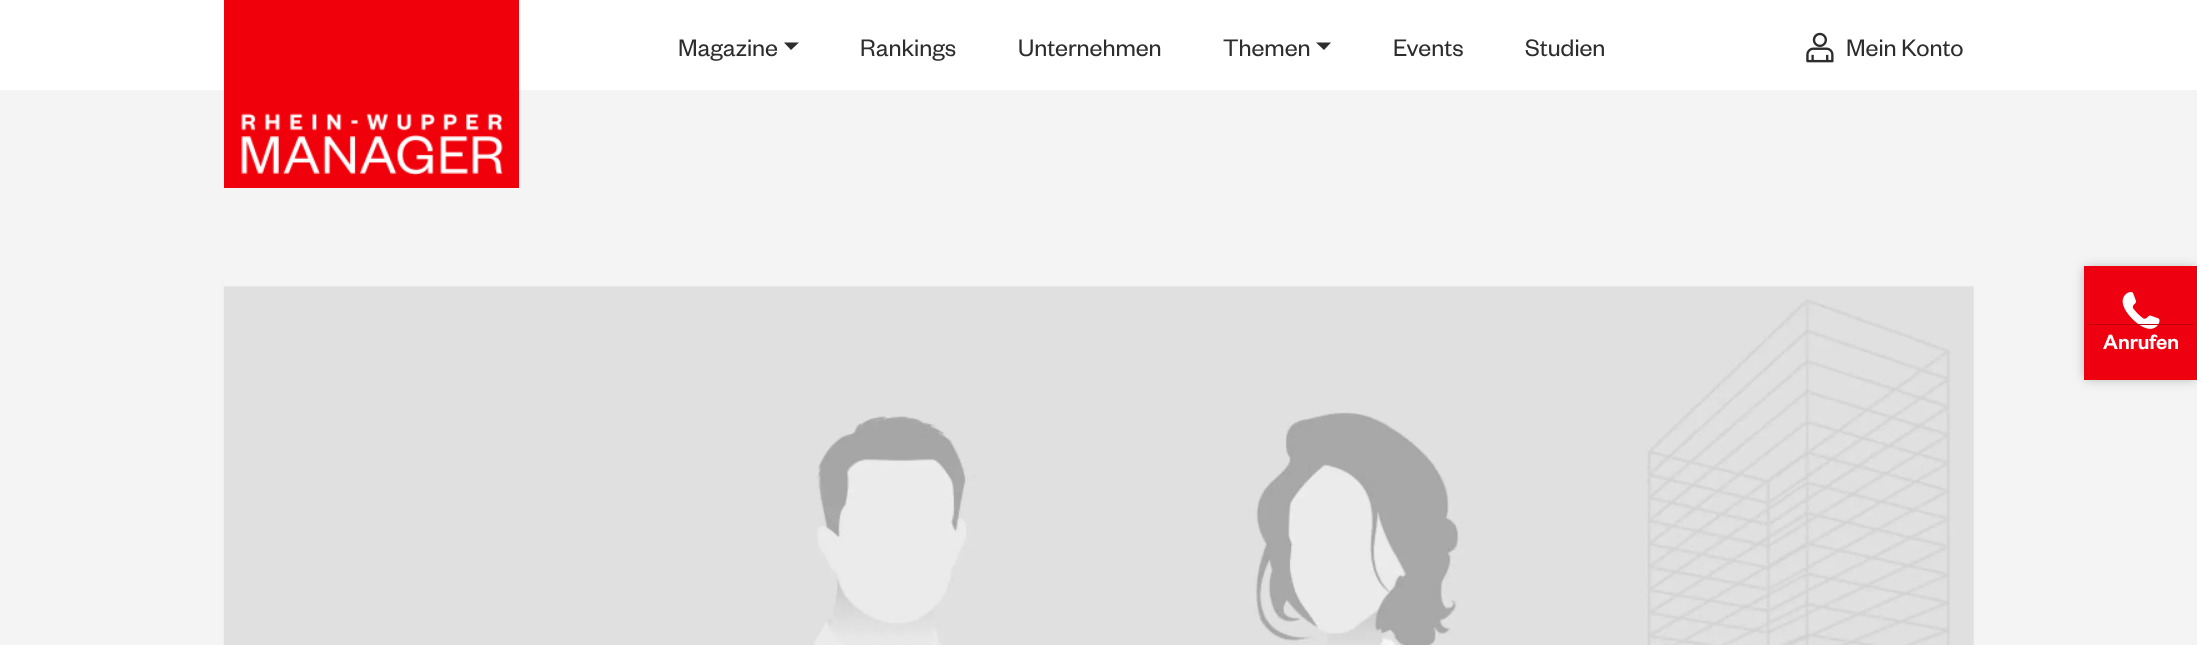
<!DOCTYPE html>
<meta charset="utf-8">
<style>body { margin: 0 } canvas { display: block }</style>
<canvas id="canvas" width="2197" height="645"></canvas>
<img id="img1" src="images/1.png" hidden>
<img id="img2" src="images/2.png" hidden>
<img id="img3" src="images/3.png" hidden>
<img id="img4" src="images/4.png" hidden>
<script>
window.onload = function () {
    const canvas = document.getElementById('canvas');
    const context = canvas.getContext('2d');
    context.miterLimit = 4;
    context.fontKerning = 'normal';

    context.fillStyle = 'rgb(244, 244, 244)';
    context.fillRect(0, 0, 2197, 645);
    context.fillStyle = 'rgb(255, 255, 255)';
    context.fillRect(0, 0, 2197, 90);
    context.fillStyle = 'rgb(240, 0, 11)';
    context.fillRect(224, 0, 295, 188);
    context.drawImage(document.getElementById('img1'), 241, 113, 262, 63);
    context.fillStyle = 'rgb(45, 45, 45)';
    context.beginPath();
    context.moveTo(784, 42.5);
    context.lineTo(799, 42.5);
    context.lineTo(791, 50);
    context.closePath();
    context.fill();
    context.beginPath();
    context.moveTo(1316, 42.5);
    context.lineTo(1331, 42.5);
    context.lineTo(1324, 50);
    context.closePath();
    context.fill();
    context.drawImage(document.getElementById('img2'), 1806, 32, 28, 31);
    context.drawImage(document.getElementById('img3'), 223, 286, 1751, 359);
    context.fillStyle = 'rgba(0, 0, 0, 0.27)';
    context.filter = 'blur(6px)';
    context.beginPath();
    context.rect(2085, 268, 111, 111);
    context.fill();
    context.filter = 'none';
    context.fillStyle = 'rgb(239, 0, 17)';
    context.fillRect(2084, 266, 113, 114);
    context.drawImage(document.getElementById('img4'), 2122, 292, 38, 37);
    context.fillStyle = 'rgb(191, 2, 15)';
    context.fillRect(2088, 324, 106, 1);
    context.font = '26.25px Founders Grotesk';
    context.fillStyle = 'rgb(45, 45, 45)';
    context.fillText('Magazine', 678, 56);
    context.fillText('Rankings', 860, 56);
    context.fillText('Unternehmen', 1018, 56);
    context.fillText('Themen', 1223, 56);
    context.fillText('Events', 1393, 56);
    context.fillText('Studien', 1525, 56);
    context.fillText('Mein Konto', 1846, 56);
    context.font = '500 22.5px Founders Grotesk';
    context.fillStyle = 'rgb(255, 255, 255)';
    context.fillText('Anrufen', 2103, 349);
};
</script>
